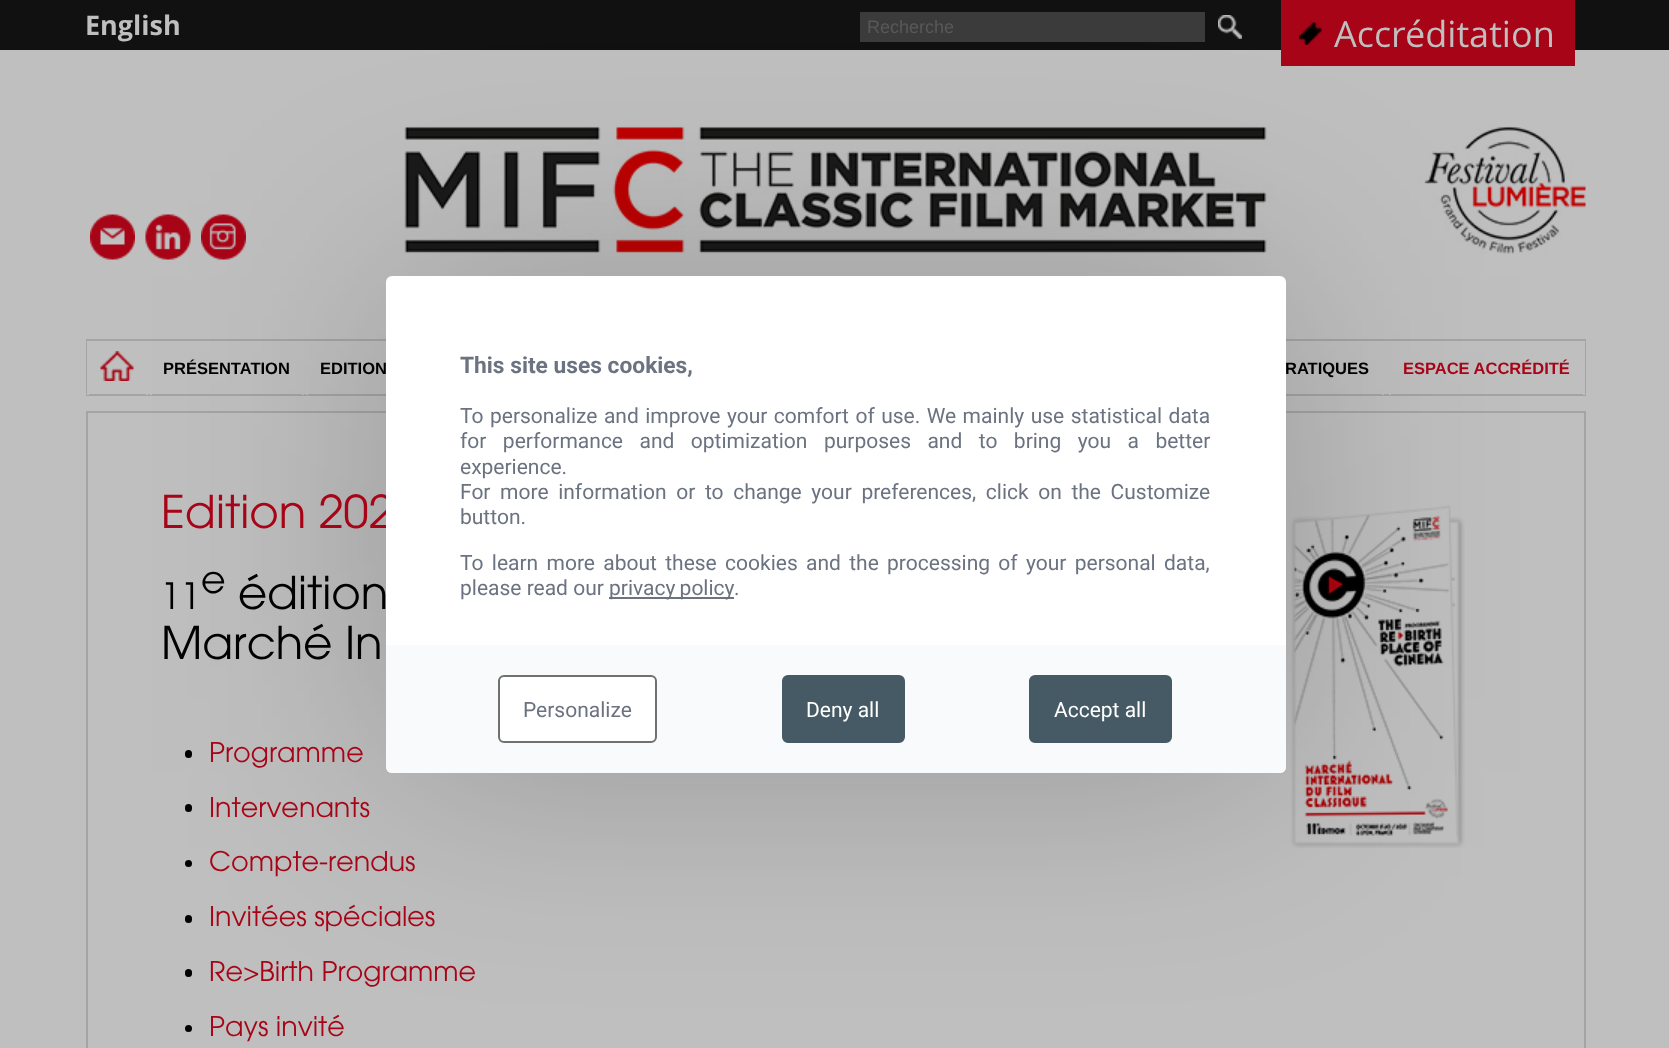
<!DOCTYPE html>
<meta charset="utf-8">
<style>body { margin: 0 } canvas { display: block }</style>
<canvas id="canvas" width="1669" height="1048"></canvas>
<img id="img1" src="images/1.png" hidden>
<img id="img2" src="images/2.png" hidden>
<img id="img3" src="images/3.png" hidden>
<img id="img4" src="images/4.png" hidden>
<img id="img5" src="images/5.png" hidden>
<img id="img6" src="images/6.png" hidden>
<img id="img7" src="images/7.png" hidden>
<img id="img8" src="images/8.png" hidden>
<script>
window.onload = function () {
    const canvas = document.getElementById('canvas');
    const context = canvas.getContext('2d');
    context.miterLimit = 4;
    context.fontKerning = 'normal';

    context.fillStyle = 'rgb(191, 191, 191)';
    context.fillRect(0, 0, 1669, 1048);
    context.fillStyle = 'rgb(17, 17, 17)';
    context.fillRect(0, 0, 1669, 50);
    context.fillStyle = 'rgb(59, 59, 59)';
    context.fillRect(860, 12, 345, 30);
    context.drawImage(document.getElementById('img1'), 1218, 15, 24, 24);
    context.fillStyle = 'rgb(167, 5, 23)';
    context.fillRect(1281, 0, 294, 66);
    context.drawImage(document.getElementById('img2'), 1299, 22, 23, 23);
    context.drawImage(document.getElementById('img3'), 90, 214, 45, 46);
    context.drawImage(document.getElementById('img4'), 145, 214, 46, 46);
    context.drawImage(document.getElementById('img5'), 201, 214, 45, 46);
    context.drawImage(document.getElementById('img6'), 404, 125, 1182, 129);
    context.strokeStyle = 'rgb(164, 164, 164)';
    context.lineWidth = 2;
    context.strokeRect(87, 340, 1498, 55);
    context.fillStyle = 'rgb(191, 191, 191)';
    context.fillRect(146, 394, 2, 1);
    context.fillRect(87, 341, 2, 54);
    context.drawImage(document.getElementById('img7'), 100, 351, 34, 30);
    context.fillRect(302, 394, 2, 1);
    context.fillRect(150, 394, 2, 1);
    context.fillRect(306, 394, 2, 1);
    context.fillRect(1382, 394, 2, 1);
    context.fillRect(1583, 341, 2, 54);
    context.fillRect(1389, 394, 2, 1);
    context.strokeRect(87, 412, 1498, 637);
    context.drawImage(document.getElementById('img8'), 1291, 505, 174, 343);
    context.fillStyle = 'rgb(0, 0, 0)';
    context.beginPath();
    context.roundRect(185, 750, 7, 8, 3.5);
    context.fill();
    context.beginPath();
    context.roundRect(185, 804, 7, 8, 3.5);
    context.fill();
    context.beginPath();
    context.arc(188.5, 863.5, 3.5, 0, 2 * Math.PI);
    context.fill();
    context.beginPath();
    context.roundRect(185, 915, 7, 8, 3.5);
    context.fill();
    context.beginPath();
    context.roundRect(185, 969, 7, 8, 3.5);
    context.fill();
    context.beginPath();
    context.arc(188.5, 1028.5, 3.5, 0, 2 * Math.PI);
    context.fill();
    context.fillStyle = 'rgba(0, 0, 0, 0.2)';
    context.filter = 'blur(112.5px)';
    context.beginPath();
    context.roundRect(386, 276, 900, 497, 6);
    context.fill();
    context.filter = 'none';
    context.font = 'bold 27px Open Sans';
    context.fillStyle = 'rgb(191, 191, 191)';
    context.fillText('English', 85, 35);
    context.font = '18px Liberation Sans';
    context.fillStyle = 'rgb(88, 88, 88)';
    context.fillText('Recherche', 867, 33);
    context.font = '36px Open Sans';
    context.fillStyle = 'rgb(191, 191, 191)';
    context.fillText('Accréditation', 1334, 47);
    context.font = 'bold 16.5px Liberation Sans';
    context.fillStyle = 'rgb(0, 0, 0)';
    context.fillText('PRÉSENTATION', 163, 374);
    context.fillText('EDITION', 320, 374);
    context.fillText('RATIQUES', 1285, 374);
    context.fillStyle = 'rgb(167, 5, 23)';
    context.fillText('ESPACE ACCRÉDITÉ', 1403, 374);
    context.font = '45px "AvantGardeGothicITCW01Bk"';
    context.fillText('Edition 202', 161, 528);
    context.fillStyle = 'rgb(255, 255, 255)';
    context.beginPath();
    context.roundRect(386, 276, 900, 497, 6);
    context.fill();
    context.fillStyle = 'rgb(249, 250, 251)';
    context.beginPath();
    context.roundRect(386, 645, 900, 128, [0, 0, 6, 6]);
    context.fill();
    context.fillStyle = 'rgb(69, 90, 100)';
    context.beginPath();
    context.roundRect(1030, 676, 141, 66, 5);
    context.fill();
    context.strokeStyle = 'rgb(69, 90, 100)';
    context.stroke();
    context.font = '21px Roboto';
    context.fillStyle = 'rgb(255, 255, 255)';
    context.fillText('Accept all', 1054, 717);
    context.fillStyle = 'rgb(69, 90, 100)';
    context.beginPath();
    context.roundRect(783, 676, 121, 66, 5);
    context.fill();
    context.stroke();
    context.fillStyle = 'rgb(255, 255, 255)';
    context.fillText('Deny all', 806, 717);
    context.beginPath();
    context.roundRect(499, 676, 157, 66, 5);
    context.fill();
    context.strokeStyle = 'rgb(112, 112, 112)';
    context.stroke();
    context.fillStyle = 'rgb(107, 114, 128)';
    context.fillText('Personalize', 523, 717);
    context.fillText('.', 734, 595);
    context.fillRect(609, 597, 125, 2);
    context.wordSpacing = '-1px';
    context.fillText('privacy policy', 609, 595);
    context.wordSpacing = '0px';
    context.fillText('please read our', 460, 595);
    context.wordSpacing = '3.1px';
    context.fillText('To learn more about these cookies and the processing of your personal data,', 460, 570);
    context.wordSpacing = '0px';
    context.fillText('button.', 460, 524);
    context.wordSpacing = '4.4px';
    context.fillText('For more information or to change your preferences, click on the Customize', 460, 499);
    context.wordSpacing = '0px';
    context.fillText('experience.', 460, 474);
    context.wordSpacing = '11.25px';
    context.fillText('for performance and optimization purposes and to bring you a better', 460, 448);
    context.wordSpacing = '1.25px';
    context.fillText('To personalize and improve your comfort of use. We mainly use statistical data', 460, 423);
    context.wordSpacing = '0px';
    context.font = 'bold 22.75px Roboto';
    context.fillText('This site uses cookies,', 460, 373);
    context.font = '36px "AvantGardeGothicITCW01Bk"';
    context.fillStyle = 'rgb(0, 0, 0)';
    context.fillText('11', 161, 609);
    context.font = '38px "AvantGardeGothicITCW01Bk"';
    context.fillText('e', 201, 593);
    context.font = '45px "AvantGardeGothicITCW01Bk"';
    context.fillText('édition', 238, 609);
    context.fillText('Marché In', 161, 659);
    context.font = '27px "AvantGardeGothicITCW01Bk"';
    context.fillStyle = 'rgb(167, 5, 23)';
    context.fillText('Programme', 209, 762);
    context.fillText('Intervenants', 209, 817);
    context.fillText('Compte-rendus', 209, 871);
    context.fillText('Invitées spéciales', 209, 926);
    context.fillText('Re>Birth Programme', 209, 981);
    context.fillText('Pays invité', 209, 1036);
};
</script>
